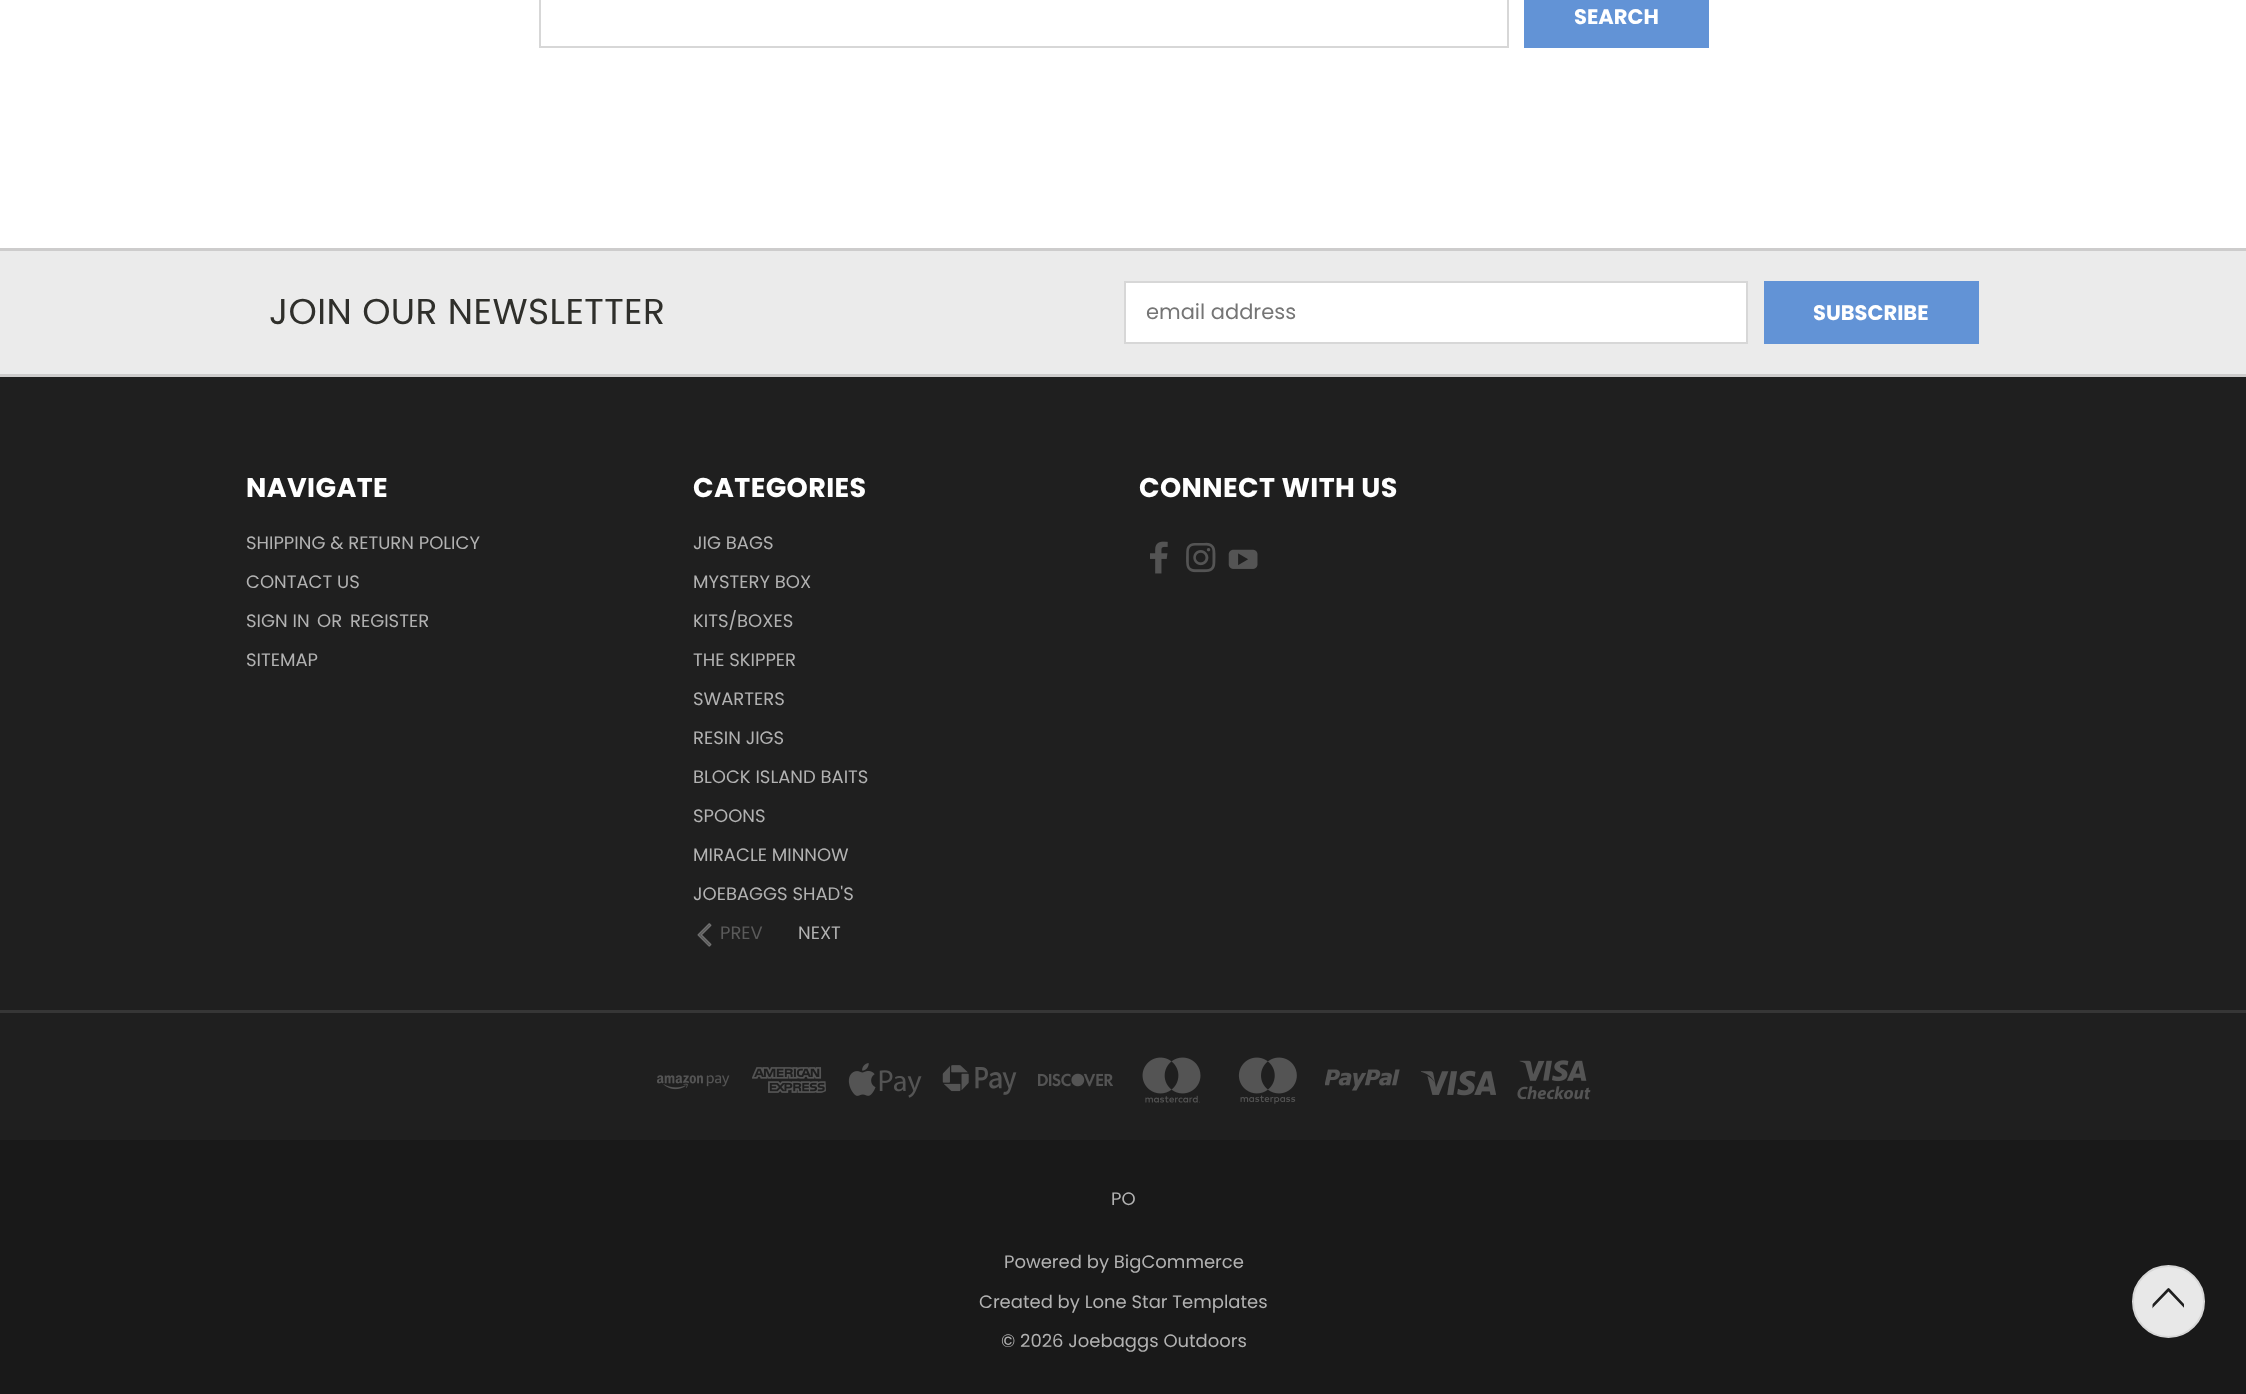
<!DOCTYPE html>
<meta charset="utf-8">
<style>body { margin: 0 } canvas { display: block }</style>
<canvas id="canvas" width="2246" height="1394"></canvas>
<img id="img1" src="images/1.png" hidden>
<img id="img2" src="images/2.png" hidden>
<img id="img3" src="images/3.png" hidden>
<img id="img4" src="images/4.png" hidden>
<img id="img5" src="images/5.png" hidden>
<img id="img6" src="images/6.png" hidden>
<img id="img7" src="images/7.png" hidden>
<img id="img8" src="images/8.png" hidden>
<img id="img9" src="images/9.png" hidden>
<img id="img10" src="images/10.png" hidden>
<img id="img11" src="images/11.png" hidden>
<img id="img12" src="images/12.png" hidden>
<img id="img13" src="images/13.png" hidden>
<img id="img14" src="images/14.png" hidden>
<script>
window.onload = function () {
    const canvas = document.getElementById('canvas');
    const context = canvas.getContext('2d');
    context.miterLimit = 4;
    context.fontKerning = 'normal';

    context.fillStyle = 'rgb(255, 255, 255)';
    context.fillRect(0, 0, 2246, 1394);
    context.strokeStyle = 'rgb(215, 215, 215)';
    context.lineWidth = 2;
    context.strokeRect(540, -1, 968, 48);
    context.fillStyle = 'rgb(98, 147, 214)';
    context.fillRect(1524, 0, 185, 48);
    context.fillStyle = 'rgb(235, 235, 235)';
    context.fillRect(0, 251, 2246, 123);
    context.fillStyle = 'rgb(205, 204, 204)';
    context.fillRect(0, 248, 2246, 3);
    context.fillStyle = 'rgb(255, 255, 255)';
    context.beginPath();
    context.rect(1125, 282, 622, 61);
    context.fill();
    context.stroke();
    context.fillStyle = 'rgb(98, 147, 214)';
    context.fillRect(1764, 281, 215, 63);
    context.fillStyle = 'rgb(31, 31, 31)';
    context.fillRect(0, 377, 2246, 763);
    context.fillStyle = 'rgb(205, 204, 204)';
    context.fillRect(0, 374, 2246, 3);
    context.drawImage(document.getElementById('img1'), 697, 923, 15, 24);
    context.drawImage(document.getElementById('img2'), 1150, 541, 18, 33);
    context.drawImage(document.getElementById('img3'), 1186, 542, 30, 31);
    context.drawImage(document.getElementById('img4'), 1228, 549, 30, 20);
    context.fillStyle = 'rgb(54, 54, 54)';
    context.fillRect(0, 1010, 2246, 3);
    context.drawImage(document.getElementById('img5'), 657, 1075, 73, 15);
    context.drawImage(document.getElementById('img6'), 752, 1067, 74, 26);
    context.drawImage(document.getElementById('img7'), 848, 1063, 74, 35);
    context.drawImage(document.getElementById('img8'), 942, 1065, 75, 30);
    context.drawImage(document.getElementById('img9'), 1038, 1073, 75, 14);
    context.drawImage(document.getElementById('img10'), 1142, 1057, 59, 46);
    context.drawImage(document.getElementById('img11'), 1238, 1057, 59, 47);
    context.drawImage(document.getElementById('img12'), 1325, 1069, 75, 22);
    context.drawImage(document.getElementById('img13'), 1421, 1070, 75, 26);
    context.drawImage(document.getElementById('img14'), 1517, 1060, 74, 40);
    context.fillStyle = 'rgb(25, 25, 25)';
    context.fillRect(0, 1140, 2246, 254);
    context.fillStyle = 'rgb(232, 232, 232)';
    context.beginPath();
    context.arc(2168.5, 1301.5, 35.5, 0, 2 * Math.PI);
    context.fill();
    context.stroke();
    context.save();
    context.beginPath();
    context.moveTo(2184, 1288);
    context.lineTo(2184, 1319);
    context.lineTo(2152.5, 1319);
    context.lineTo(2152.5, 1288);
    context.closePath();
    context.clip();
    context.beginPath();
    context.moveTo(2194.5, 1317);
    context.lineTo(2168.5, 1289.5);
    context.lineTo(2142, 1317);
    context.strokeStyle = 'rgb(31, 31, 31)';
    context.lineWidth = 2.6;
    context.lineCap = 'round';
    context.lineJoin = 'round';
    context.stroke();
    context.restore();
    context.font = 'bold 21px Poppins';
    context.fillStyle = 'rgb(255, 255, 255)';
    context.fillText('SEARCH', 1574, 24);
    context.letterSpacing = '0.4px';
    context.font = '36px Poppins';
    context.fillStyle = 'rgb(47, 47, 43)';
    context.fillText('JOIN OUR NEWSLETTER', 269, 324);
    context.letterSpacing = '0px';
    context.font = '21px Poppins';
    context.fillStyle = 'rgb(117, 117, 117)';
    context.fillText('email address', 1146, 319);
    context.font = 'bold 21px Poppins';
    context.fillStyle = 'rgb(255, 255, 255)';
    context.fillText('SUBSCRIBE', 1813, 320);
    context.letterSpacing = '0.4px';
    context.font = 'bold 27px Poppins';
    context.fillText('NAVIGATE', 246, 497);
    context.letterSpacing = '0px';
    context.font = '18px Poppins';
    context.fillStyle = 'rgb(178, 178, 178)';
    context.fillText('SHIPPING & RETURN POLICY', 246, 549);
    context.fillText('CONTACT US', 246, 588);
    context.fillText('SIGN IN', 246, 627);
    context.fillText('OR', 317, 627);
    context.fillText('REGISTER', 350, 627);
    context.fillText('SITEMAP', 246, 666);
    context.letterSpacing = '0.4px';
    context.font = 'bold 27px Poppins';
    context.fillStyle = 'rgb(255, 255, 255)';
    context.fillText('CATEGORIES', 693, 497);
    context.letterSpacing = '0px';
    context.font = '18px Poppins';
    context.fillStyle = 'rgb(178, 178, 178)';
    context.fillText('JIG BAGS', 693, 549);
    context.fillText('MYSTERY BOX', 693, 588);
    context.fillText('KITS/BOXES', 693, 627);
    context.fillText('THE SKIPPER', 693, 666);
    context.fillText('SWARTERS', 693, 705);
    context.fillText('RESIN JIGS', 693, 744);
    context.fillText('BLOCK ISLAND BAITS', 693, 783);
    context.fillText('SPOONS', 693, 822);
    context.fillText('MIRACLE MINNOW', 693, 861);
    context.fillText('JOEBAGGS SHAD\'S', 693, 900);
    context.fillStyle = 'rgb(90, 90, 90)';
    context.fillText('PREV', 720, 939);
    context.fillStyle = 'rgb(178, 178, 178)';
    context.fillText('NEXT', 798, 939);
    context.letterSpacing = '0.4px';
    context.font = 'bold 27px Poppins';
    context.fillStyle = 'rgb(255, 255, 255)';
    context.fillText('CONNECT WITH US', 1139, 497);
    context.letterSpacing = '0px';
    context.font = '18px Poppins';
    context.fillStyle = 'rgb(178, 178, 178)';
    context.fillText('PO', 1111, 1205);
    context.fillText('Powered by BigCommerce', 1004, 1268);
    context.fillText('Created by Lone Star Templates', 979, 1308);
    context.fillText('© 2026 Joebaggs Outdoors', 1001, 1347);
};
</script>
